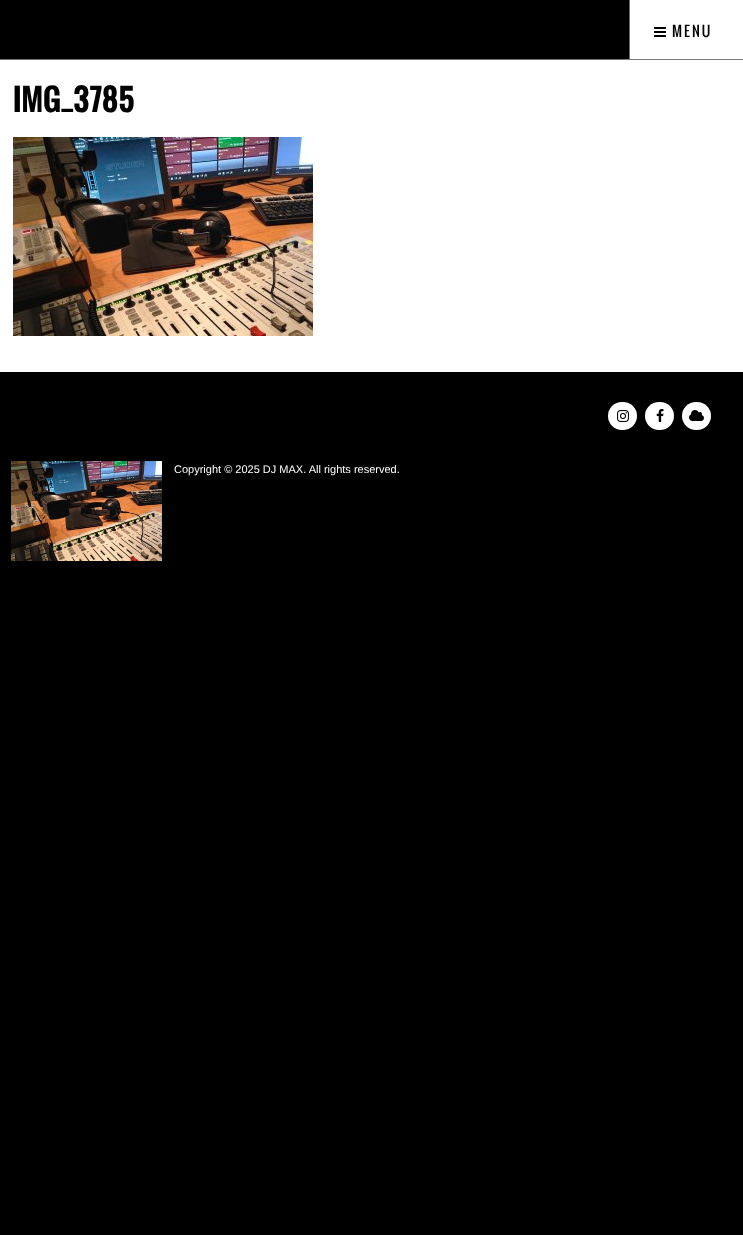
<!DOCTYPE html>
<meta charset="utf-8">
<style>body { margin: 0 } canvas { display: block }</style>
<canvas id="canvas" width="743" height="1235"></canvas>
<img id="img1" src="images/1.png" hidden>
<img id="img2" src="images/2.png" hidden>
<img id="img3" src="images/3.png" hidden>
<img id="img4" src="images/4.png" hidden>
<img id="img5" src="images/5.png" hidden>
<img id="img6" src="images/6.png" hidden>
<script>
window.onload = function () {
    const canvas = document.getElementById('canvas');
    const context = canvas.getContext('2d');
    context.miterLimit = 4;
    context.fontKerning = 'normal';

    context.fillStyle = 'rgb(0, 0, 0)';
    context.fillRect(0, 0, 743, 1235);
    context.fillStyle = 'rgb(255, 255, 255)';
    context.fillRect(630, 0, 113, 59);
    context.fillStyle = 'rgb(105, 105, 105)';
    context.fillRect(629, 0, 1, 59);
    context.drawImage(document.getElementById('img1'), 654, 27, 12, 10);
    context.fillStyle = 'rgb(119, 119, 119)';
    context.fillRect(0, 59, 743, 1);
    context.fillStyle = 'rgb(255, 255, 255)';
    context.fillRect(0, 60, 743, 312);
    context.drawImage(document.getElementById('img2'), 13, 137, 300, 199);
    context.beginPath();
    context.roundRect(608, 402, 29, 28, 14);
    context.fill();
    context.drawImage(document.getElementById('img3'), 617, 410, 12, 12);
    context.beginPath();
    context.roundRect(645, 402, 29, 28, 14);
    context.fill();
    context.drawImage(document.getElementById('img4'), 656, 409, 8, 13);
    context.beginPath();
    context.roundRect(682, 402, 29, 28, 14);
    context.fill();
    context.drawImage(document.getElementById('img5'), 689, 410, 15, 11);
    context.drawImage(document.getElementById('img6'), 11, 461, 151, 100);
    context.letterSpacing = '2px';
    context.font = '14px Oswald';
    context.fillStyle = 'rgb(0, 0, 0)';
    context.fillText('MENU', 672, 37);
    context.letterSpacing = '0px';
    context.font = 'bold 30px Oswald';
    context.fillText('IMG_3785', 13, 112);
    context.font = '11px Liberation Sans';
    context.fillStyle = 'rgb(255, 255, 255)';
    context.fillText('Copyright © 2025 DJ MAX. All rights reserved.', 174, 473);
};
</script>
